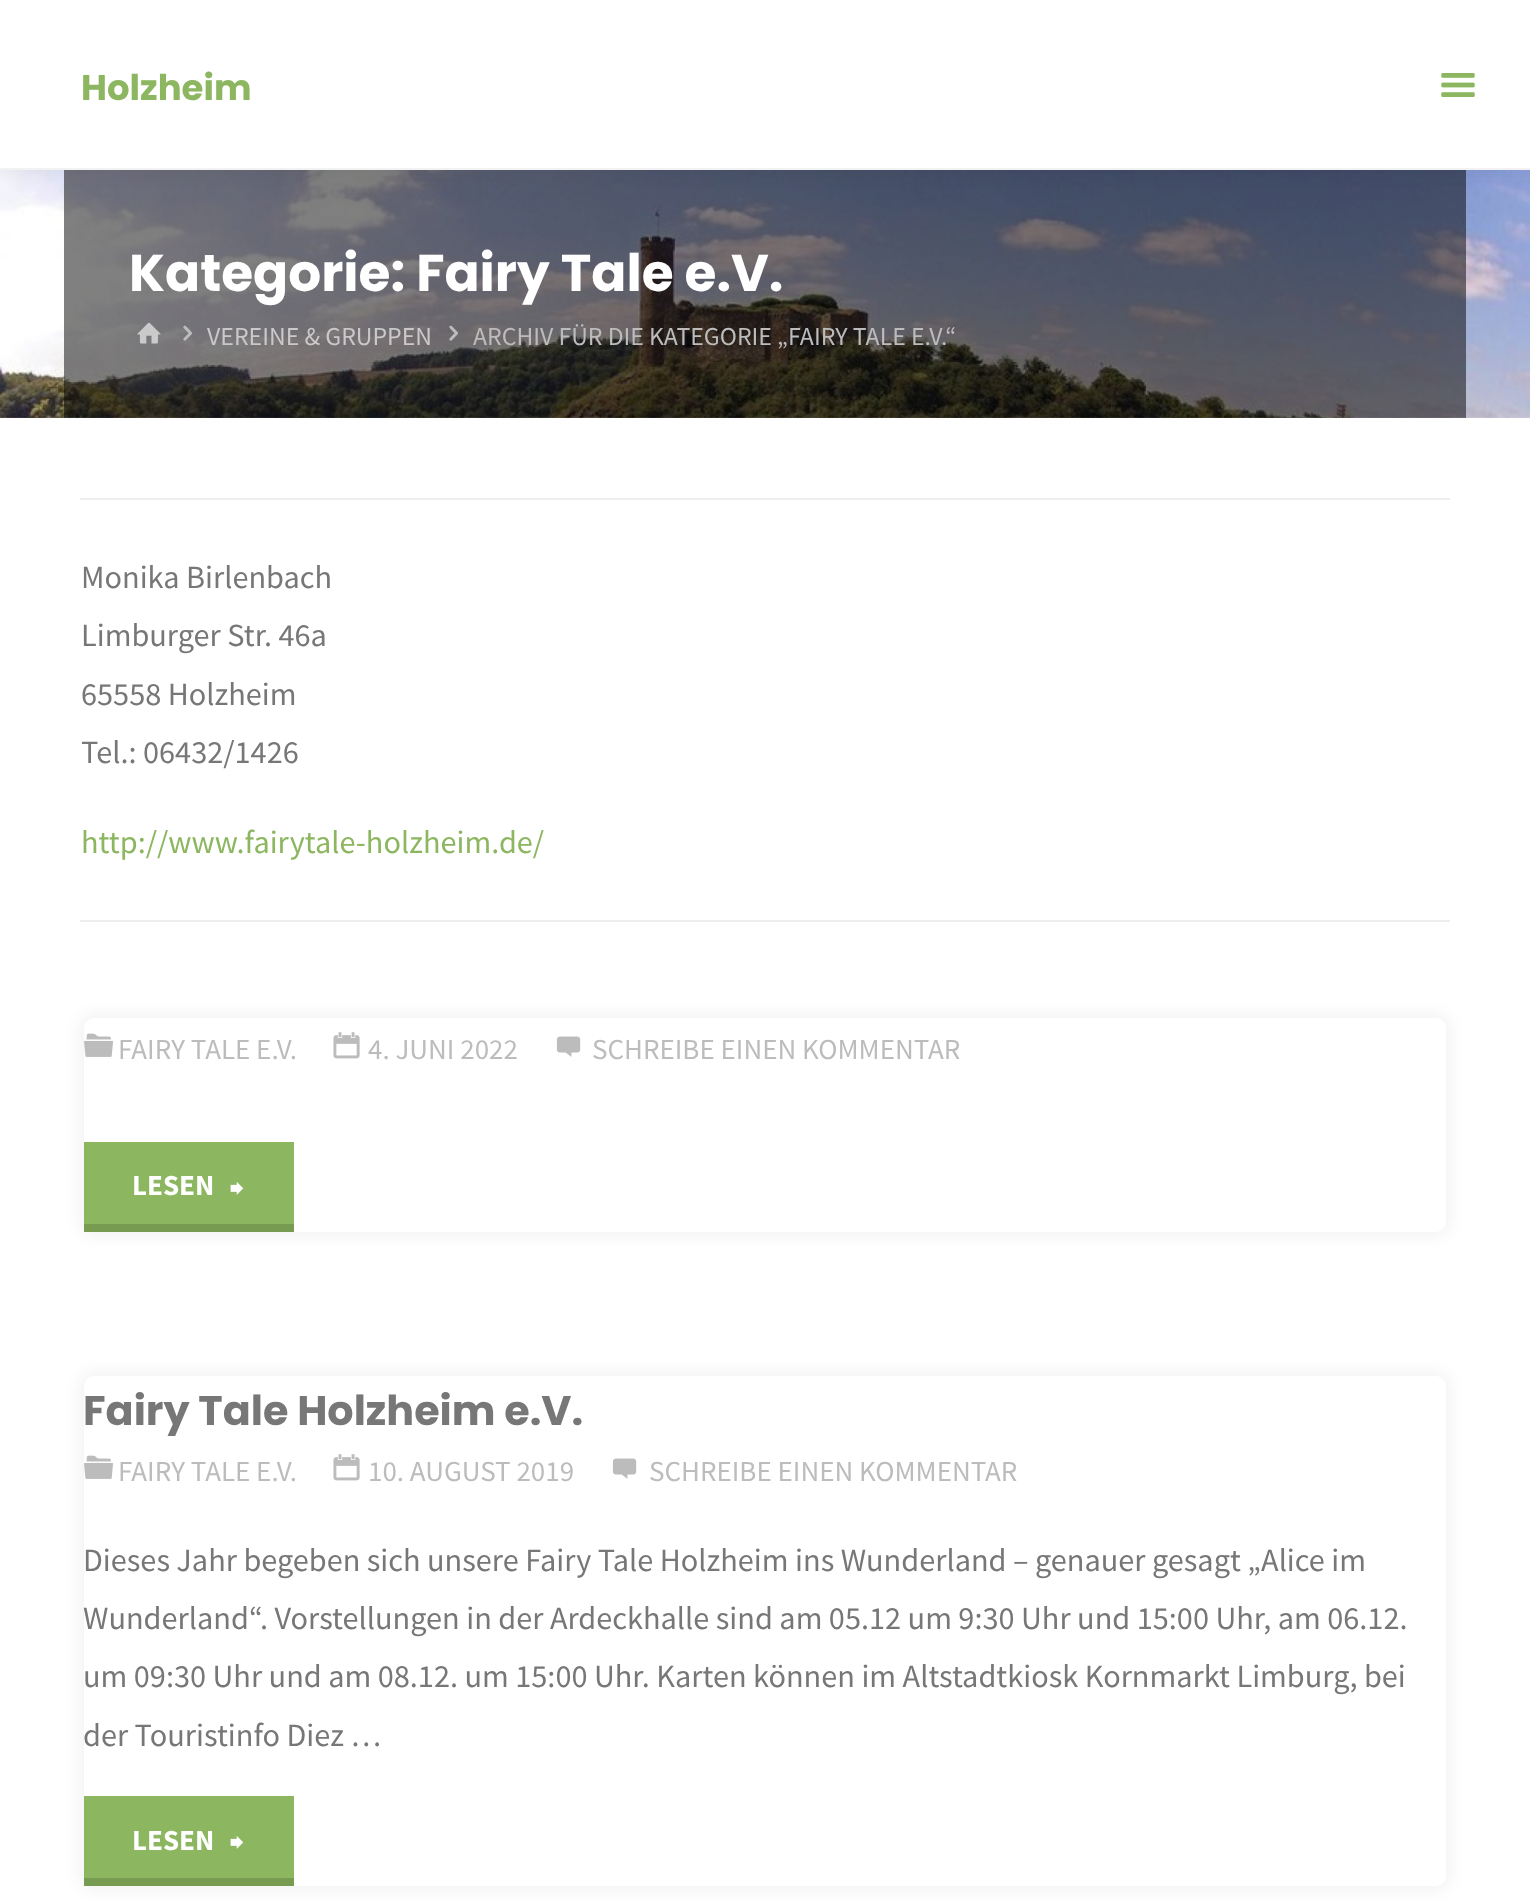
<!DOCTYPE html>
<meta charset="utf-8">
<style>body { margin: 0 } canvas { display: block }</style>
<canvas id="canvas" width="1530" height="1901"></canvas>
<img id="img1" src="images/2.png" hidden>
<img id="img2" src="images/1.png" hidden>
<img id="img3" src="images/3.png" hidden>
<img id="img4" src="images/4.png" hidden>
<img id="img5" src="images/5.png" hidden>
<img id="img6" src="images/6.png" hidden>
<img id="img7" src="images/7.png" hidden>
<img id="img8" src="images/8.png" hidden>
<img id="img9" src="images/9.png" hidden>
<script>
window.onload = function () {
    const canvas = document.getElementById('canvas');
    const context = canvas.getContext('2d');
    context.miterLimit = 4;
    context.fontKerning = 'normal';

    context.fillStyle = 'rgb(255, 255, 255)';
    context.fillRect(0, 0, 1530, 1901);
    context.drawImage(document.getElementById('img1'), 0, 170, 1530, 248);
    context.fillStyle = 'rgba(0, 0, 0, 0.05)';
    context.filter = 'blur(8px)';
    context.beginPath();
    context.rect(-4, -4, 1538, 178);
    context.fill();
    context.filter = 'none';
    context.fillStyle = 'rgb(255, 255, 255)';
    context.fillRect(0, 0, 1530, 168);
    context.fillStyle = 'rgb(242, 242, 242)';
    context.fillRect(0, 168, 1530, 2);
    context.drawImage(document.getElementById('img2'), 1441, 73, 34, 24);
    context.drawImage(document.getElementById('img3'), 137, 322, 24, 22);
    context.drawImage(document.getElementById('img4'), 183, 325, 9, 16);
    context.drawImage(document.getElementById('img5'), 449, 325, 9, 16);
    context.fillStyle = 'rgb(238, 238, 238)';
    context.fillRect(80, 498, 1370, 2);
    context.fillRect(80, 920, 1370, 2);
    context.fillStyle = 'rgba(0, 0, 0, 0.05)';
    context.filter = 'blur(8px)';
    context.beginPath();
    context.roundRect(80, 1014, 1370, 222, 14);
    context.fill();
    context.filter = 'none';
    context.fillStyle = 'rgb(255, 255, 255)';
    context.beginPath();
    context.roundRect(84, 1018, 1362, 214, 10);
    context.fill();
    context.drawImage(document.getElementById('img6'), 84, 1033, 29, 24);
    context.drawImage(document.getElementById('img7'), 333, 1032, 27, 27);
    context.drawImage(document.getElementById('img8'), 556, 1036, 25, 21);
    context.fillStyle = 'rgb(140, 182, 95)';
    context.fillRect(84, 1142, 210, 82);
    context.drawImage(document.getElementById('img9'), 230, 1182, 14, 13);
    context.fillStyle = 'rgb(119, 155, 81)';
    context.fillRect(84, 1224, 210, 8);
    context.fillStyle = 'rgba(0, 0, 0, 0.05)';
    context.filter = 'blur(8px)';
    context.beginPath();
    context.roundRect(80, 1372, 1370, 518, 14);
    context.fill();
    context.filter = 'none';
    context.fillStyle = 'rgb(255, 255, 255)';
    context.beginPath();
    context.roundRect(84, 1376, 1362, 510, 10);
    context.fill();
    context.drawImage(document.getElementById('img6'), 84, 1455, 29, 24);
    context.drawImage(document.getElementById('img7'), 333, 1454, 27, 27);
    context.drawImage(document.getElementById('img8'), 612, 1458, 25, 21);
    context.fillStyle = 'rgb(140, 182, 95)';
    context.fillRect(84, 1796, 210, 82);
    context.drawImage(document.getElementById('img9'), 230, 1836, 14, 13);
    context.fillStyle = 'rgb(119, 155, 81)';
    context.fillRect(84, 1878, 210, 8);
    context.font = 'bold 35.5px Poppins';
    context.fillStyle = 'rgb(140, 182, 95)';
    context.fillText('Holzheim', 81, 100);
    context.font = 'bold 51.75px Poppins';
    context.fillStyle = 'rgb(255, 255, 255)';
    context.fillText('Kategorie: Fairy Tale e.V.', 129, 291);
    context.font = '25.8px Source Sans Pro';
    context.fillStyle = 'rgb(202, 200, 201)';
    context.fillText('VEREINE & GRUPPEN', 207, 345);
    context.fillStyle = 'rgb(188, 188, 188)';
    context.fillText('ARCHIV FÜR DIE KATEGORIE „FAIRY TALE E.V.“', 473, 345);
    context.font = '32.3px Source Sans Pro';
    context.fillStyle = 'rgb(119, 119, 119)';
    context.fillText('Monika Birlenbach', 81, 588);
    context.fillText('Limburger Str. 46a', 81, 646);
    context.fillText('65558 Holzheim', 81, 705);
    context.fillText('Tel.: 06432/1426', 81, 763);
    context.fillStyle = 'rgb(140, 182, 95)';
    context.fillText('http://www.fairytale-holzheim.de/', 81, 853);
    context.font = '29px Source Sans Pro';
    context.fillStyle = 'rgb(188, 188, 188)';
    context.fillText('FAIRY TALE E.V.', 118, 1059);
    context.fillText('4. JUNI 2022', 368, 1059);
    context.fillText('SCHREIBE EINEN KOMMENTAR', 592, 1059);
    context.font = 'bold 29px Source Sans Pro';
    context.fillStyle = 'rgb(255, 255, 255)';
    context.fillText('LESEN', 132, 1195);
    context.font = 'bold 41.3px Poppins';
    context.fillStyle = 'rgb(119, 119, 119)';
    context.fillText('Fairy Tale Holzheim e.V.', 83, 1425);
    context.font = '29px Source Sans Pro';
    context.fillStyle = 'rgb(188, 188, 188)';
    context.fillText('FAIRY TALE E.V.', 118, 1481);
    context.fillText('10. AUGUST 2019', 368, 1481);
    context.fillText('SCHREIBE EINEN KOMMENTAR', 649, 1481);
    context.font = '32.3px Source Sans Pro';
    context.fillStyle = 'rgb(119, 119, 119)';
    context.fillText('Dieses Jahr begeben sich unsere Fairy Tale Holzheim ins Wunderland – genauer gesagt „Alice im', 83, 1571);
    context.fillText('Wunderland“. Vorstellungen in der Ardeckhalle sind am 05.12 um 9:30 Uhr und 15:00 Uhr, am 06.12.', 83, 1629);
    context.fillText('um 09:30 Uhr und am 08.12. um 15:00 Uhr. Karten können im Altstadtkiosk Kornmarkt Limburg, bei', 83, 1687);
    context.fillText('der Touristinfo Diez …', 83, 1746);
    context.font = 'bold 29px Source Sans Pro';
    context.fillStyle = 'rgb(255, 255, 255)';
    context.fillText('LESEN', 132, 1850);
};
</script>
